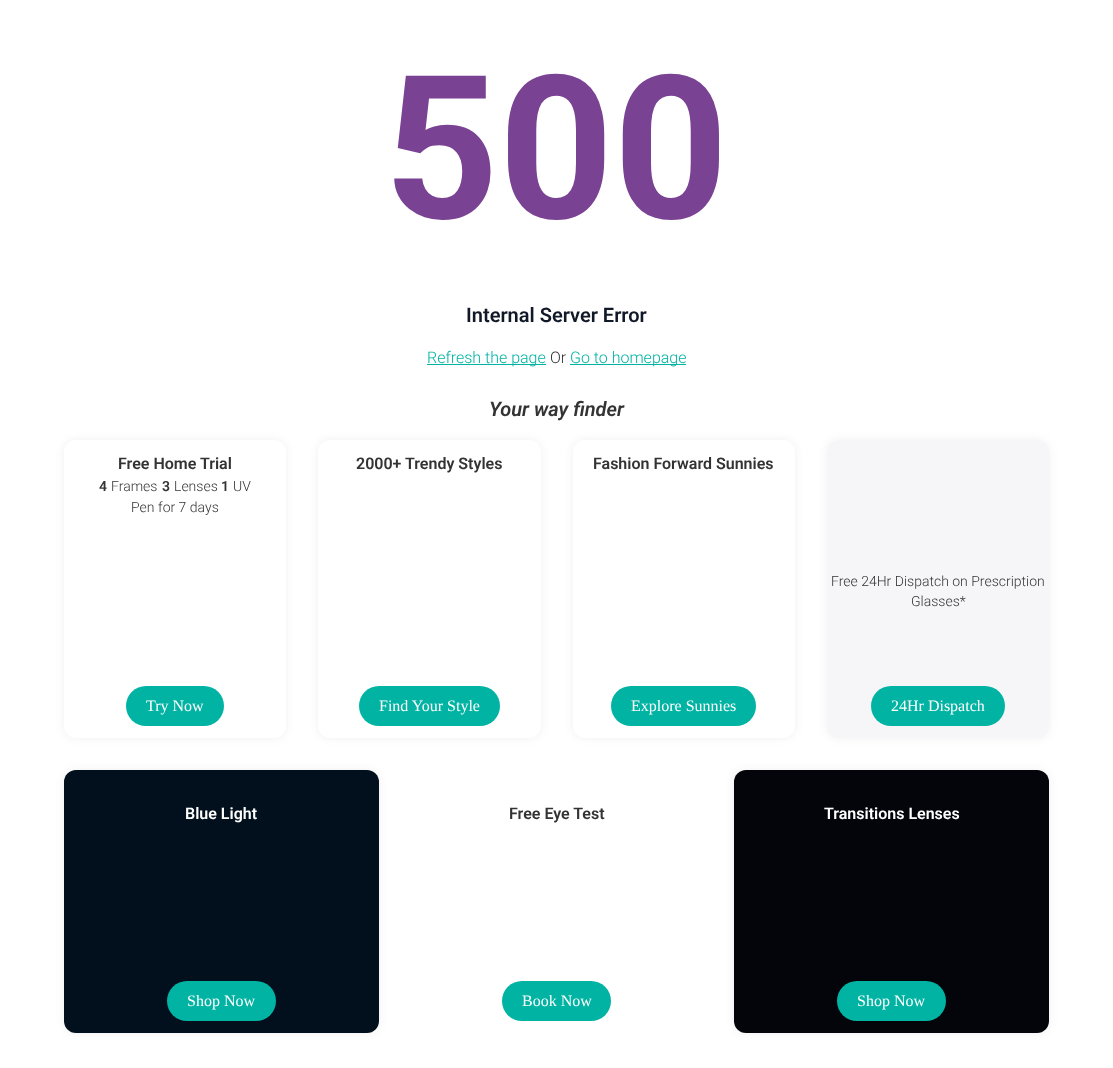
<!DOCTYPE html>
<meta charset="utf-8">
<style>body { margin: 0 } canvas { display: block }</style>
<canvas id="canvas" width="1113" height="1068"></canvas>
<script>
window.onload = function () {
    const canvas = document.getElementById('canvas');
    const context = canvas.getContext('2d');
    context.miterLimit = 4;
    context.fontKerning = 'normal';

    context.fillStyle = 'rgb(255, 255, 255)';
    context.fillRect(0, 0, 1113, 1068);
    context.fillStyle = 'rgb(0, 179, 163)';
    context.fillRect(427, 364, 119, 1);
    context.fillRect(570, 364, 116, 1);
    context.fillStyle = 'rgba(0, 0, 8, 0.06)';
    context.filter = 'blur(5px)';
    context.beginPath();
    context.roundRect(64, 440, 222, 298, 12);
    context.fill();
    context.filter = 'none';
    context.fillStyle = 'rgb(255, 255, 255)';
    context.beginPath();
    context.roundRect(64, 440, 222, 298, 12);
    context.fill();
    context.fillStyle = 'rgb(0, 179, 163)';
    context.beginPath();
    context.roundRect(126, 686, 98, 40, 20);
    context.fill();
    context.fillStyle = 'rgba(0, 0, 8, 0.06)';
    context.filter = 'blur(5px)';
    context.beginPath();
    context.roundRect(318, 440, 223, 298, 12);
    context.fill();
    context.filter = 'none';
    context.fillStyle = 'rgb(255, 255, 255)';
    context.beginPath();
    context.roundRect(318, 440, 223, 298, 12);
    context.fill();
    context.fillStyle = 'rgb(0, 179, 163)';
    context.beginPath();
    context.roundRect(359, 686, 141, 40, 20);
    context.fill();
    context.fillStyle = 'rgba(0, 0, 8, 0.06)';
    context.filter = 'blur(5px)';
    context.beginPath();
    context.roundRect(573, 440, 222, 298, 12);
    context.fill();
    context.filter = 'none';
    context.fillStyle = 'rgb(255, 255, 255)';
    context.beginPath();
    context.roundRect(573, 440, 222, 298, 12);
    context.fill();
    context.fillStyle = 'rgb(0, 179, 163)';
    context.beginPath();
    context.roundRect(611, 686, 145, 40, 20);
    context.fill();
    context.fillStyle = 'rgba(0, 0, 8, 0.06)';
    context.filter = 'blur(5px)';
    context.beginPath();
    context.roundRect(827, 440, 222, 298, 12);
    context.fill();
    context.filter = 'none';
    context.fillStyle = 'rgb(246, 245, 248)';
    context.beginPath();
    context.roundRect(827, 440, 222, 298, 12);
    context.fill();
    context.fillStyle = 'rgb(0, 179, 163)';
    context.beginPath();
    context.roundRect(871, 686, 134, 40, 20);
    context.fill();
    context.fillStyle = 'rgba(0, 0, 8, 0.06)';
    context.filter = 'blur(5px)';
    context.beginPath();
    context.roundRect(64, 770, 315, 263, 12);
    context.fill();
    context.filter = 'none';
    context.fillStyle = 'rgb(1, 16, 28)';
    context.beginPath();
    context.roundRect(64, 770, 315, 263, 12);
    context.fill();
    context.fillStyle = 'rgb(0, 179, 163)';
    context.beginPath();
    context.roundRect(167, 981, 109, 40, 20);
    context.fill();
    context.beginPath();
    context.roundRect(502, 981, 109, 40, 20);
    context.fill();
    context.fillStyle = 'rgba(0, 0, 8, 0.06)';
    context.filter = 'blur(5px)';
    context.beginPath();
    context.roundRect(734, 770, 315, 263, 12);
    context.fill();
    context.filter = 'none';
    context.fillStyle = 'rgb(3, 5, 11)';
    context.beginPath();
    context.roundRect(734, 770, 315, 263, 12);
    context.fill();
    context.fillStyle = 'rgb(0, 179, 163)';
    context.beginPath();
    context.roundRect(837, 981, 109, 40, 20);
    context.fill();
    context.font = 'bold 200px Roboto';
    context.fillStyle = 'rgb(121, 66, 147)';
    context.fillText('500', 384, 218);
    context.font = '600 20px Roboto';
    context.fillStyle = 'rgb(17, 24, 39)';
    context.fillText('Internal Server Error', 466, 322);
    context.font = '300 16px Roboto';
    context.fillStyle = 'rgb(0, 179, 163)';
    context.fillText('Refresh the page', 427, 363);
    context.fillStyle = 'rgb(51, 51, 51)';
    context.fillText('Or', 550, 363);
    context.fillStyle = 'rgb(0, 179, 163)';
    context.fillText('Go to homepage', 570, 363);
    context.font = 'italic 600 20px Roboto';
    context.fillStyle = 'rgb(51, 51, 51)';
    context.fillText('Your way finder', 489, 416);
    context.font = '600 16px Roboto';
    context.fillText('Free Home Trial', 118, 469);
    context.font = '600 14px Roboto';
    context.fillText('4', 99, 491);
    context.font = '300 14px Roboto';
    context.fillText('Frames', 111, 491);
    context.font = '600 14px Roboto';
    context.fillText('3', 162, 491);
    context.font = '300 14px Roboto';
    context.fillText('Lenses', 174, 491);
    context.font = '600 14px Roboto';
    context.fillText('1', 221, 491);
    context.font = '300 14px Roboto';
    context.fillText('UV', 233, 491);
    context.fillText('Pen', 131, 512);
    context.fillText('for 7 days', 158, 512);
    context.font = '16px Liberation Serif';
    context.fillStyle = 'rgb(255, 255, 255)';
    context.fillText('Try Now', 146, 711);
    context.font = '600 16px Roboto';
    context.fillStyle = 'rgb(51, 51, 51)';
    context.fillText('2000+ Trendy Styles', 356, 469);
    context.font = '16px Liberation Serif';
    context.fillStyle = 'rgb(255, 255, 255)';
    context.fillText('Find Your Style', 379, 711);
    context.font = '600 16px Roboto';
    context.fillStyle = 'rgb(51, 51, 51)';
    context.fillText('Fashion Forward Sunnies', 593, 469);
    context.font = '16px Liberation Serif';
    context.fillStyle = 'rgb(255, 255, 255)';
    context.fillText('Explore Sunnies', 631, 711);
    context.font = '300 14px Roboto';
    context.fillStyle = 'rgb(51, 51, 51)';
    context.fillText('Free 24Hr Dispatch on Prescription', 831, 586);
    context.fillText('Glasses*', 911, 606);
    context.font = '16px Liberation Serif';
    context.fillStyle = 'rgb(255, 255, 255)';
    context.fillText('24Hr Dispatch', 891, 711);
    context.font = '600 16px Roboto';
    context.fillText('Blue Light', 185, 819);
    context.font = '16px Liberation Serif';
    context.fillText('Shop Now', 187, 1006);
    context.font = '600 16px Roboto';
    context.fillStyle = 'rgb(51, 51, 51)';
    context.fillText('Free Eye Test', 509, 819);
    context.font = '16px Liberation Serif';
    context.fillStyle = 'rgb(255, 255, 255)';
    context.fillText('Book Now', 522, 1006);
    context.font = '600 16px Roboto';
    context.fillText('Transitions Lenses', 824, 819);
    context.font = '16px Liberation Serif';
    context.fillText('Shop Now', 857, 1006);
};
</script>
